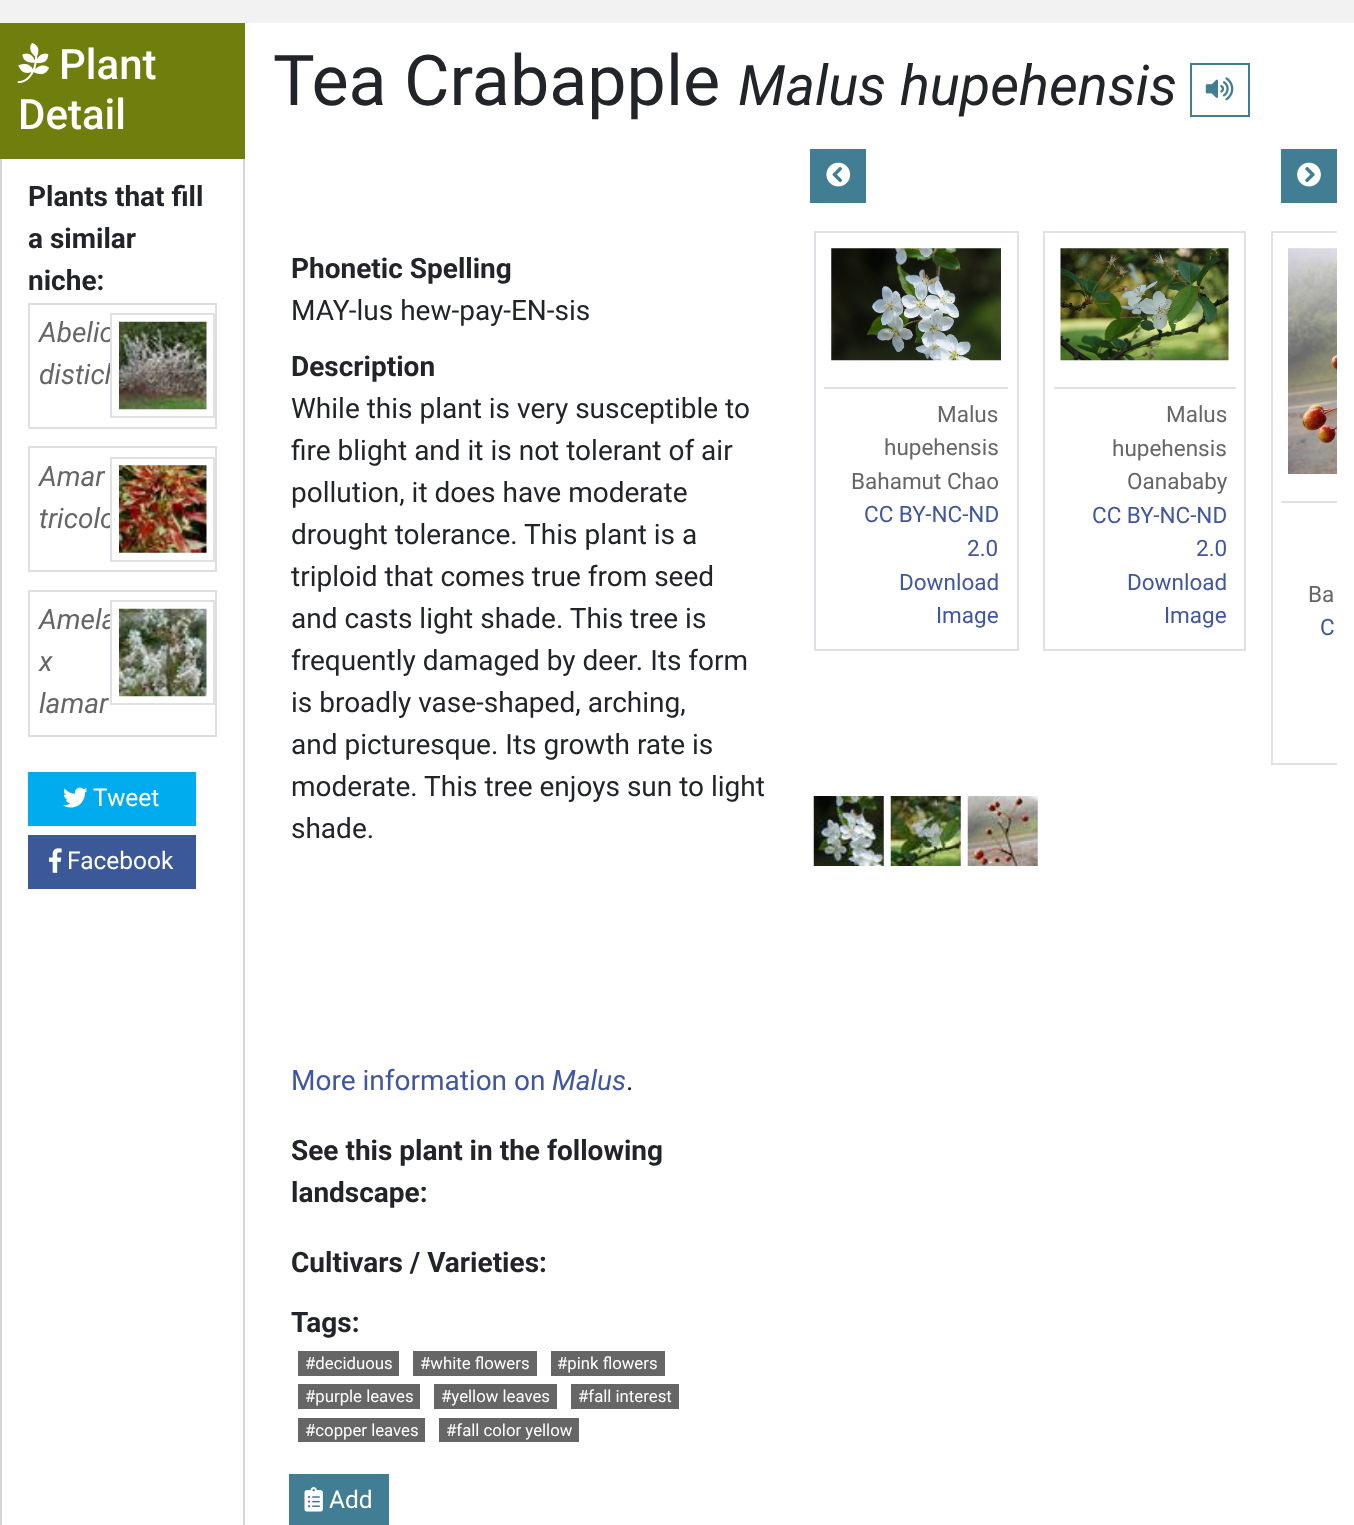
<!DOCTYPE html>
<meta charset="utf-8">
<style>body { margin: 0 } canvas { display: block }</style>
<canvas id="canvas" width="1354" height="1525"></canvas>
<img id="img1" src="images/1.png" hidden>
<img id="img2" src="images/5.png" hidden>
<img id="img3" src="images/6.png" hidden>
<img id="img4" src="images/7.png" hidden>
<img id="img5" src="images/8.png" hidden>
<img id="img6" src="images/9.png" hidden>
<img id="img7" src="images/10.png" hidden>
<img id="img8" src="images/11.png" hidden>
<img id="img9" src="images/12.png" hidden>
<img id="img10" src="images/13.png" hidden>
<img id="img11" src="images/14.png" hidden>
<img id="img12" src="images/15.png" hidden>
<img id="img13" src="images/16.png" hidden>
<img id="img14" src="images/2.png" hidden>
<img id="img15" src="images/3.png" hidden>
<img id="img16" src="images/4.png" hidden>
<script>
window.onload = function () {
    const canvas = document.getElementById('canvas');
    const context = canvas.getContext('2d');
    context.miterLimit = 4;
    context.fontKerning = 'normal';

    context.fillStyle = 'rgb(255, 255, 255)';
    context.fillRect(0, 0, 1354, 1525);
    context.fillStyle = 'rgb(242, 242, 242)';
    context.fillRect(0, 0, 1354, 23);
    context.fillStyle = 'rgb(214, 213, 211)';
    context.fillRect(243, 159, 2, 1366);
    context.fillRect(0, 159, 2, 1366);
    context.fillStyle = 'rgb(111, 126, 13)';
    context.fillRect(0, 23, 245, 136);
    context.drawImage(document.getElementById('img1'), 17, 42, 32, 42);
    context.strokeStyle = 'rgb(223, 223, 223)';
    context.lineWidth = 2;
    context.strokeRect(29, 304, 187, 124);
    context.strokeRect(29, 447, 187, 124);
    context.strokeRect(29, 591, 187, 145);
    context.fillStyle = 'rgb(0, 172, 238)';
    context.fillRect(28, 772, 168, 54);
    context.drawImage(document.getElementById('img2'), 63, 787, 25, 21);
    context.fillStyle = 'rgb(59, 89, 152)';
    context.fillRect(28, 835, 168, 54);
    context.drawImage(document.getElementById('img3'), 49, 848, 13, 25);
    context.strokeStyle = 'rgb(66, 126, 147)';
    context.strokeRect(1191, 64, 58, 52);
    context.drawImage(document.getElementById('img4'), 1205, 77, 29, 24);
    context.fillStyle = 'rgb(66, 126, 147)';
    context.fillRect(810, 149, 56, 54);
    context.drawImage(document.getElementById('img5'), 826, 162, 25, 25);
    context.fillRect(1281, 149, 56, 54);
    context.drawImage(document.getElementById('img6'), 1297, 162, 24, 25);
    context.fillStyle = 'rgb(102, 102, 102)';
    context.fillRect(298, 1351, 101, 25);
    context.fillRect(413, 1351, 124, 25);
    context.fillRect(551, 1351, 114, 25);
    context.fillRect(298, 1384, 122, 25);
    context.fillRect(434, 1384, 123, 25);
    context.fillRect(571, 1384, 108, 25);
    context.fillRect(298, 1418, 127, 24);
    context.fillRect(439, 1418, 140, 24);
    context.fillStyle = 'rgb(66, 126, 147)';
    context.fillRect(289, 1474, 100, 51);
    context.drawImage(document.getElementById('img7'), 304, 1487, 19, 25);
    context.strokeStyle = 'rgb(222, 226, 230)';
    context.strokeRect(815, 232, 203, 418);
    context.drawImage(document.getElementById('img8'), 831, 248, 170, 113);
    context.fillStyle = 'rgb(222, 226, 230)';
    context.fillRect(824, 387, 184, 2);
    context.strokeRect(1044, 232, 201, 418);
    context.drawImage(document.getElementById('img9'), 1060, 248, 169, 113);
    context.fillRect(1054, 387, 182, 2);
    context.save();
    context.beginPath();
    context.rect(810, 231, 527, 551);
    context.clip();
    context.strokeRect(1272, 232, 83, 532);
    context.restore();
    context.drawImage(document.getElementById('img10'), 1288, 248, 49, 226);
    context.fillRect(1281, 501, 56, 2);
    context.drawImage(document.getElementById('img11'), 813, 796, 71, 70);
    context.drawImage(document.getElementById('img12'), 890, 796, 71, 70);
    context.drawImage(document.getElementById('img13'), 967, 796, 71, 70);
    context.font = '500 42px Roboto';
    context.fillStyle = 'rgb(255, 255, 255)';
    context.fillText('Plant', 59, 79);
    context.fillText('Detail', 18, 129);
    context.font = 'bold 28px Roboto';
    context.fillStyle = 'rgb(33, 37, 41)';
    context.fillText('Plants that fill', 28, 206);
    context.fillText('a similar', 28, 248);
    context.fillText('niche:', 28, 290);
    context.font = 'italic 28px Roboto';
    context.fillStyle = 'rgb(102, 102, 102)';
    context.fillText('Abelio', 39, 342);
    context.fillText('distich', 39, 384);
    context.fillStyle = 'rgb(255, 255, 255)';
    context.fillRect(112, 329, 6, 55);
    context.strokeRect(111, 314, 103, 103);
    context.drawImage(document.getElementById('img14'), 119, 321, 88, 89);
    context.fillStyle = 'rgb(102, 102, 102)';
    context.fillText('Amar', 39, 486);
    context.fillText('tricolo', 39, 528);
    context.fillStyle = 'rgb(255, 255, 255)';
    context.fillRect(112, 514, 2, 11);
    context.strokeRect(111, 458, 103, 103);
    context.drawImage(document.getElementById('img15'), 119, 465, 88, 88);
    context.fillStyle = 'rgb(102, 102, 102)';
    context.fillText('Amela', 39, 629);
    context.fillText('x', 39, 671);
    context.fillText('lamar', 39, 713);
    context.fillStyle = 'rgb(255, 255, 255)';
    context.fillRect(112, 614, 3, 15);
    context.strokeRect(111, 601, 103, 103);
    context.drawImage(document.getElementById('img16'), 119, 608, 88, 89);
    context.font = '24.5px Roboto';
    context.fillText('Tweet', 93, 806);
    context.fillText('Facebook', 67, 869);
    context.font = '70px Roboto';
    context.fillStyle = 'rgb(33, 37, 41)';
    context.fillText('Tea Crabapple', 273, 105);
    context.font = 'italic 56px Roboto';
    context.fillText('Malus hupehensis', 738, 105);
    context.font = 'bold 28px Roboto';
    context.fillText('Phonetic Spelling', 291, 278);
    context.font = '28px Roboto';
    context.fillText('MAY-lus hew-pay-EN-sis', 291, 320);
    context.font = 'bold 28px Roboto';
    context.fillText('Description', 291, 376);
    context.font = '28px Roboto';
    context.fillText('While this plant is very susceptible to', 291, 418);
    context.fillText('fire blight and it is not tolerant of air', 291, 460);
    context.fillText('pollution, it does have moderate', 291, 502);
    context.fillText('drought tolerance. This plant is a', 291, 544);
    context.fillText('triploid that comes true from seed', 291, 586);
    context.fillText('and casts light shade. This tree is', 291, 628);
    context.fillText('frequently damaged by deer. Its form', 291, 670);
    context.fillText('is broadly vase-shaped, arching,', 291, 712);
    context.fillText('and picturesque. Its growth rate is', 291, 754);
    context.fillText('moderate. This tree enjoys sun to light', 291, 796);
    context.fillText('shade.', 291, 838);
    context.fillStyle = 'rgb(65, 86, 161)';
    context.fillText('More information on', 291, 1090);
    context.font = 'italic 28px Roboto';
    context.fillText('Malus', 552, 1090);
    context.font = '28px Roboto';
    context.fillStyle = 'rgb(33, 37, 41)';
    context.fillText('.', 626, 1090);
    context.font = 'bold 28px Roboto';
    context.fillText('See this plant in the following', 291, 1160);
    context.fillText('landscape:', 291, 1202);
    context.fillText('Cultivars / Varieties:', 291, 1272);
    context.fillText('Tags:', 291, 1332);
    context.font = '16.75px Roboto';
    context.fillStyle = 'rgb(255, 255, 255)';
    context.fillText('#deciduous', 305, 1369);
    context.fillText('#white flowers', 420, 1369);
    context.fillText('#pink flowers', 557, 1369);
    context.fillText('#purple leaves', 305, 1402);
    context.fillText('#yellow leaves', 441, 1402);
    context.fillText('#fall interest', 578, 1402);
    context.fillText('#copper leaves', 305, 1436);
    context.fillText('#fall color yellow', 446, 1436);
    context.font = '24.5px Roboto';
    context.fillText('Add', 329, 1508);
    context.font = '22.5px Roboto';
    context.fillStyle = 'rgb(102, 102, 102)';
    context.fillText('Malus', 937, 422);
    context.fillText('hupehensis', 884, 455);
    context.fillText('Bahamut Chao', 851, 489);
    context.fillStyle = 'rgb(65, 86, 161)';
    context.fillText('CC BY-NC-ND', 864, 522);
    context.fillText('2.0', 967, 556);
    context.fillText('Download', 899, 590);
    context.fillText('Image', 936, 623);
    context.fillStyle = 'rgb(102, 102, 102)';
    context.fillText('Malus', 1166, 422);
    context.fillText('hupehensis', 1112, 456);
    context.fillText('Oanababy', 1127, 489);
    context.fillStyle = 'rgb(65, 86, 161)';
    context.fillText('CC BY-NC-ND', 1092, 523);
    context.fillText('2.0', 1196, 556);
    context.fillText('Download', 1127, 590);
    context.fillText('Image', 1164, 623);
    context.fillStyle = 'rgb(102, 102, 102)';
    context.fillText('Ba', 1308, 602);
    context.fillStyle = 'rgb(65, 86, 161)';
    context.fillText('C', 1320, 635);
};
</script>
